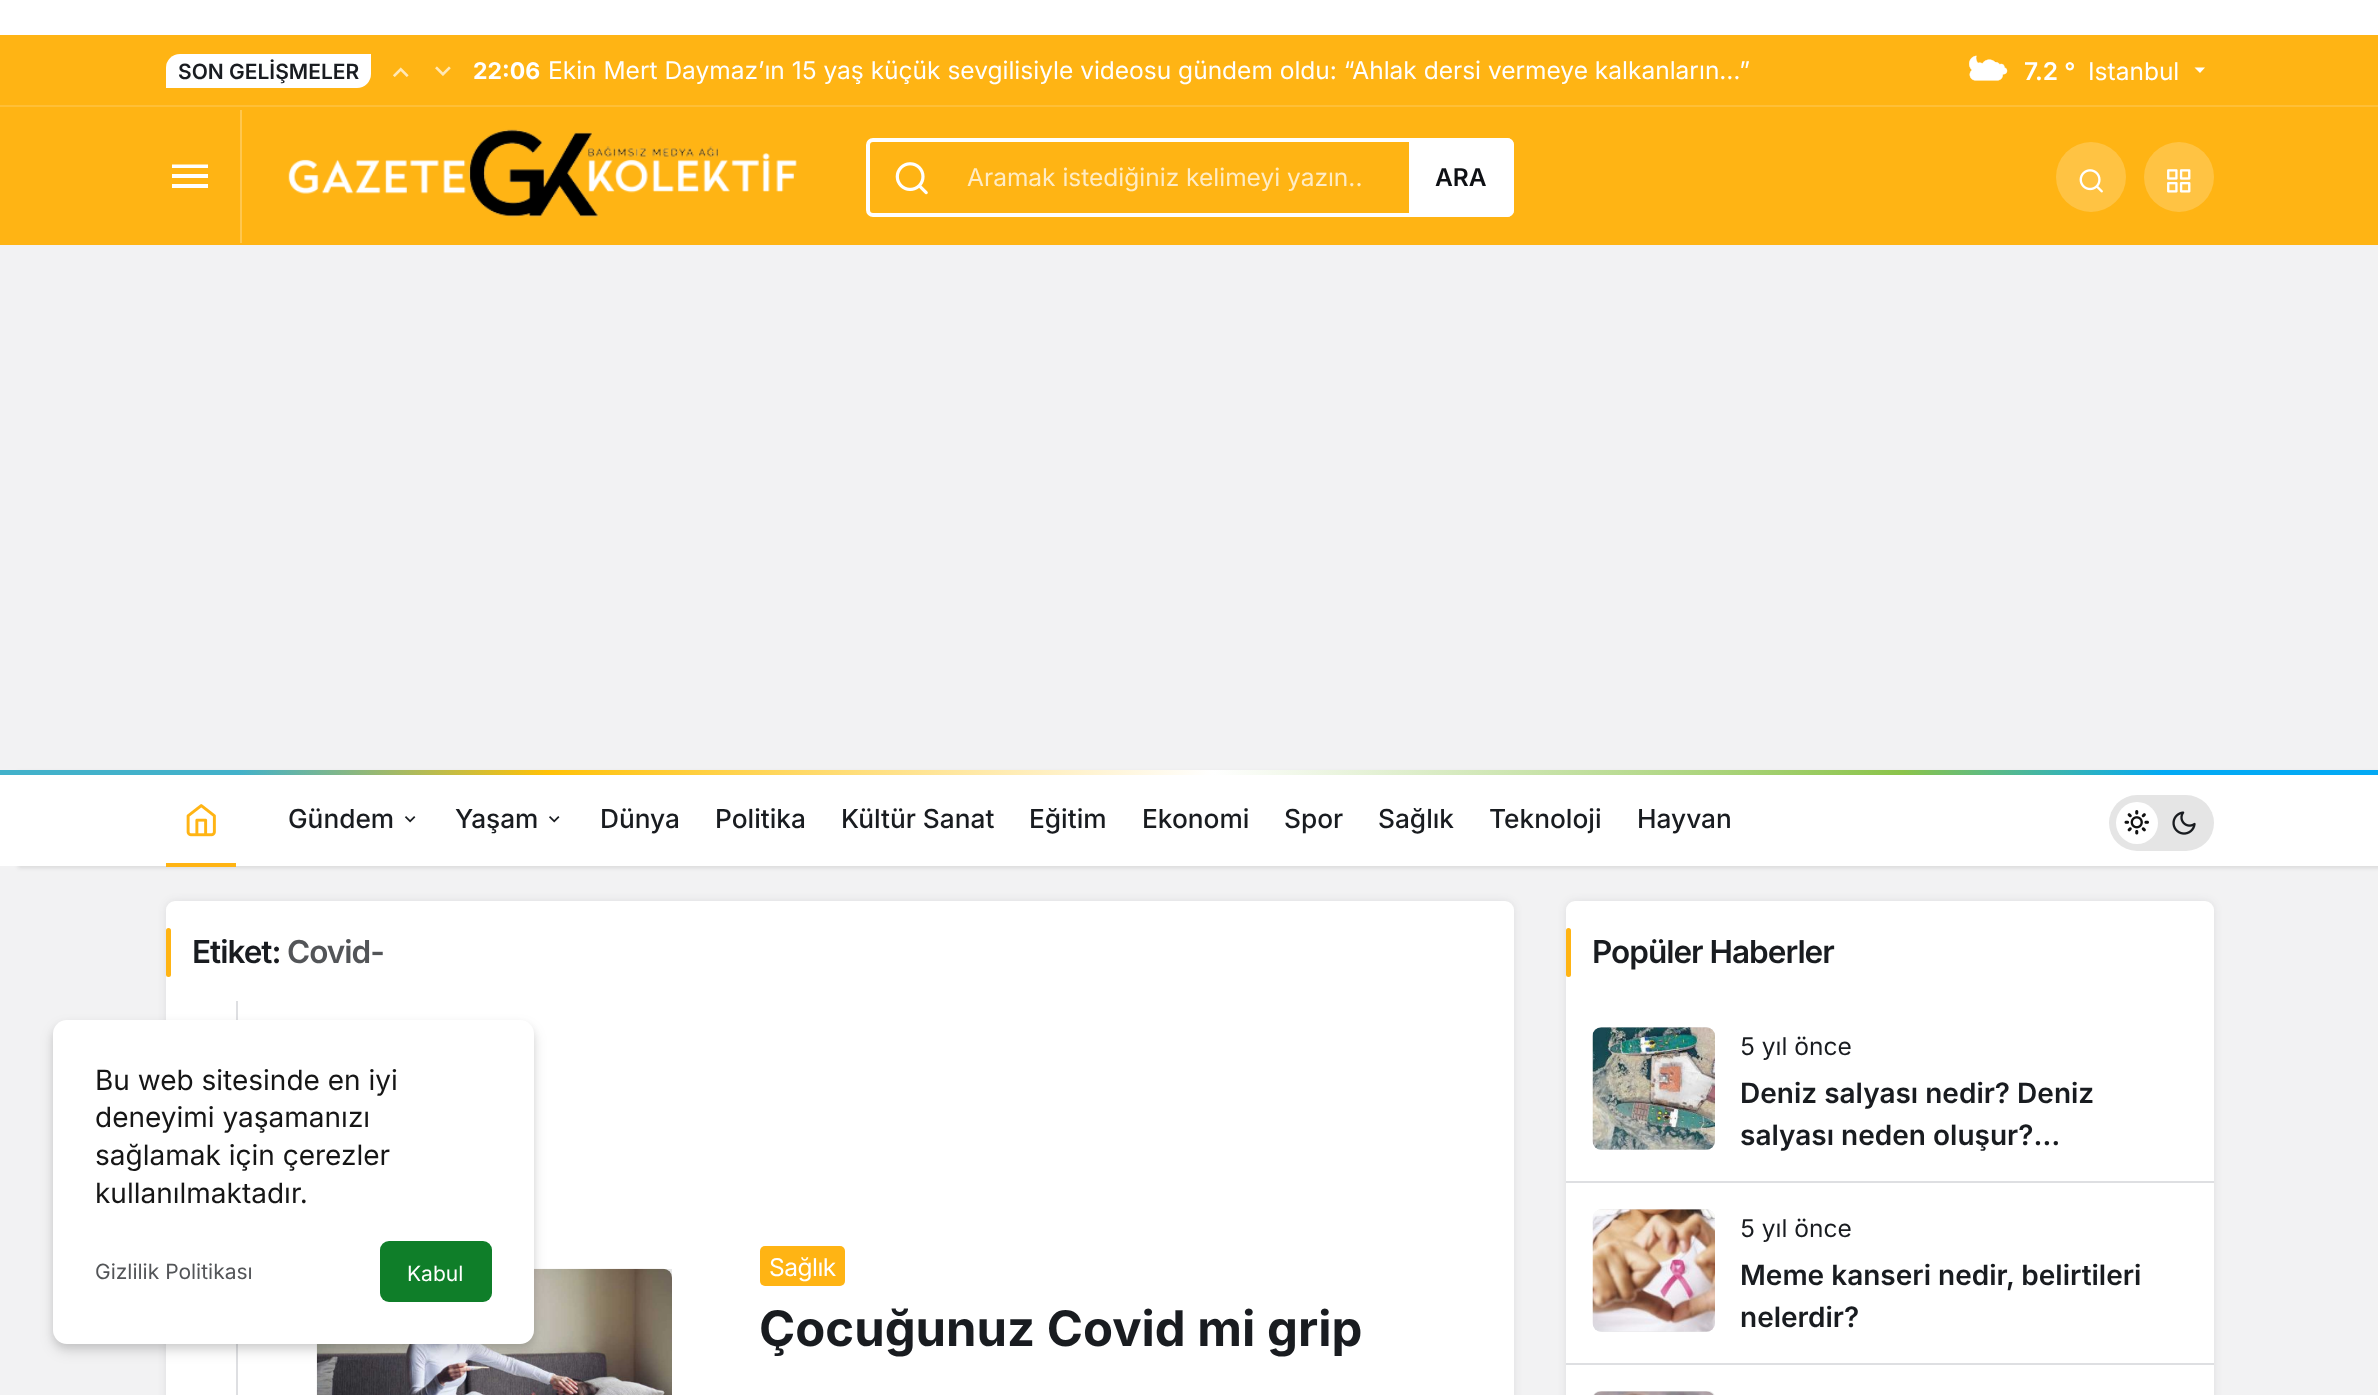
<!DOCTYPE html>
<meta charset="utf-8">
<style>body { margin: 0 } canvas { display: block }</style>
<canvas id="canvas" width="2378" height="1395"></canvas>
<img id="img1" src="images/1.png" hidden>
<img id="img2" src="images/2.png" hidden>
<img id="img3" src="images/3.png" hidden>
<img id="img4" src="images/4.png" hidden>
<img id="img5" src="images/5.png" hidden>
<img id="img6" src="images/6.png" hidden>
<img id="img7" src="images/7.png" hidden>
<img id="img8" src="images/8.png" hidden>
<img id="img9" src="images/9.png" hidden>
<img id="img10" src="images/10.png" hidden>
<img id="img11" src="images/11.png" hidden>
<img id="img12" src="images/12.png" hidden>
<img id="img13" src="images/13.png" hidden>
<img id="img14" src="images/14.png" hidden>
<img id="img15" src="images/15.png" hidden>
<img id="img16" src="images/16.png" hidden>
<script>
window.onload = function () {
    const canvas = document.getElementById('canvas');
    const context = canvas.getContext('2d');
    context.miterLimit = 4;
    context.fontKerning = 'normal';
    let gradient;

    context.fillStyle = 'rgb(255, 255, 255)';
    context.fillRect(0, 0, 2378, 1395);
    context.fillStyle = 'rgb(242, 242, 243)';
    context.fillRect(0, 245, 2378, 1150);
    context.fillStyle = 'rgb(255, 180, 20)';
    context.fillRect(0, 35, 2378, 210);
    context.fillStyle = 'rgb(255, 255, 255)';
    context.beginPath();
    context.roundRect(166, 54, 205, 34, [14, 0, 14, 0]);
    context.fill();
    context.drawImage(document.getElementById('img1'), 393, 67, 16, 10);
    context.drawImage(document.getElementById('img2'), 435, 66, 16, 10);
    context.drawImage(document.getElementById('img3'), 1969, 55, 39, 26);
    context.beginPath();
    context.moveTo(2205, 67.5);
    context.lineTo(2200, 73);
    context.lineTo(2194.5, 67.5);
    context.closePath();
    context.fill();
    context.fillStyle = 'rgb(255, 191, 55)';
    context.fillRect(0, 105, 2378, 2);
    context.fillStyle = 'rgb(255, 255, 255)';
    context.beginPath();
    context.moveTo(172, 164.5);
    context.lineTo(208, 164.5);
    context.lineTo(208, 168);
    context.lineTo(172, 168);
    context.closePath();
    context.moveTo(172, 178);
    context.lineTo(172, 174);
    context.lineTo(208, 174);
    context.lineTo(208, 178);
    context.closePath();
    context.moveTo(172, 188);
    context.lineTo(172, 184);
    context.lineTo(208, 184);
    context.lineTo(208, 188);
    context.closePath();
    context.fill();
    context.fillStyle = 'rgb(255, 199, 79)';
    context.fillRect(240, 110, 2, 133);
    context.drawImage(document.getElementById('img4'), 288, 129, 509, 88);
    context.beginPath();
    context.roundRect(868, 140, 644, 75, 5);
    context.strokeStyle = 'rgb(255, 255, 255)';
    context.lineWidth = 4;
    context.stroke();
    context.drawImage(document.getElementById('img5'), 895, 162, 33, 33);
    context.fillStyle = 'rgb(255, 255, 255)';
    context.beginPath();
    context.roundRect(1409, 138, 105, 79, [0, 7, 7, 0]);
    context.fill();
    context.fillStyle = 'rgb(255, 195, 67)';
    context.beginPath();
    context.arc(2091, 177, 35, 0, 2 * Math.PI);
    context.fill();
    context.drawImage(document.getElementById('img6'), 2079, 169, 24, 24);
    context.beginPath();
    context.arc(2179, 177, 35, 0, 2 * Math.PI);
    context.fill();
    context.drawImage(document.getElementById('img7'), 2167, 169, 24, 24);
    context.fillStyle = 'rgba(0, 0, 0, 0.1)';
    context.filter = 'blur(2px)';
    context.beginPath();
    context.rect(18, 772, 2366, 96);
    context.fill();
    context.filter = 'none';
    context.fillStyle = 'rgb(255, 255, 255)';
    context.fillRect(0, 775, 2378, 91);
    gradient = context.createLinearGradient(0, 773, 2378, 773);
    gradient.addColorStop(0.1, 'rgb(66, 177, 202)');
    gradient.addColorStop(0.23, 'rgb(255, 193, 7)');
    gradient.addColorStop(0.51, 'rgb(255, 255, 255)');
    gradient.addColorStop(0.8, 'rgb(139, 195, 74)');
    gradient.addColorStop(0.91, 'rgb(3, 169, 244)');
    context.fillStyle = gradient;
    context.fillRect(0, 770, 2378, 5);
    context.drawImage(document.getElementById('img8'), 186, 804, 30, 33);
    context.fillStyle = 'rgb(255, 180, 20)';
    context.fillRect(166, 863, 70, 4);
    context.drawImage(document.getElementById('img9'), 404, 816, 12, 7);
    context.drawImage(document.getElementById('img10'), 549, 816, 11, 7);
    context.fillStyle = 'rgb(229, 229, 229)';
    context.beginPath();
    context.roundRect(2109, 795, 105, 56, 28);
    context.fill();
    context.fillStyle = 'rgb(255, 255, 255)';
    context.beginPath();
    context.arc(2137, 823, 21, 0, 2 * Math.PI);
    context.fill();
    context.drawImage(document.getElementById('img11'), 2124, 810, 25, 25);
    context.drawImage(document.getElementById('img12'), 2172, 811, 24, 24);
    context.fillStyle = 'rgba(50, 53, 61, 0.1)';
    context.filter = 'blur(4.5px)';
    context.beginPath();
    context.roundRect(166, 901, 1348, 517, 9);
    context.fill();
    context.filter = 'none';
    context.fillStyle = 'rgb(255, 255, 255)';
    context.beginPath();
    context.roundRect(166, 901, 1348, 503, 9);
    context.fill();
    context.fillStyle = 'rgb(255, 180, 20)';
    context.beginPath();
    context.roundRect(166, 928, 5, 49, 2.5);
    context.fill();
    context.fillStyle = 'rgb(222, 223, 226)';
    context.fillRect(236, 1001, 2, 394);
    context.fillStyle = 'rgb(230, 230, 230)';
    context.fillRect(664, 1269, 8, 9);
    context.drawImage(document.getElementById('img13'), 316, 1268, 356, 127);
    context.fillStyle = 'rgb(255, 180, 20)';
    context.beginPath();
    context.roundRect(760, 1246, 85, 40, 5);
    context.fill();
    context.fillStyle = 'rgba(50, 53, 61, 0.1)';
    context.filter = 'blur(4.5px)';
    context.beginPath();
    context.roundRect(1566, 901, 648, 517, 9);
    context.fill();
    context.filter = 'none';
    context.fillStyle = 'rgb(255, 255, 255)';
    context.beginPath();
    context.roundRect(1566, 901, 648, 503, 9);
    context.fill();
    context.fillStyle = 'rgb(255, 180, 20)';
    context.beginPath();
    context.roundRect(1566, 928, 5, 49, 2.5);
    context.fill();
    context.fillStyle = 'rgb(222, 223, 226)';
    context.fillRect(1566, 1181, 648, 2);
    context.fillStyle = 'rgb(230, 230, 230)';
    context.beginPath();
    context.roundRect(1593, 1027, 122, 123, 9);
    context.fill();
    context.drawImage(document.getElementById('img14'), 1592, 1027, 123, 123);
    context.fillStyle = 'rgb(222, 223, 226)';
    context.fillRect(1566, 1363, 648, 2);
    context.fillStyle = 'rgb(230, 230, 230)';
    context.beginPath();
    context.roundRect(1593, 1209, 122, 123, 9);
    context.fill();
    context.drawImage(document.getElementById('img15'), 1592, 1209, 123, 123);
    context.beginPath();
    context.roundRect(1593, 1391, 122, 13, 9);
    context.fill();
    context.drawImage(document.getElementById('img16'), 1594, 1391, 120, 4);
    context.fillStyle = 'rgba(0, 0, 0, 0.08)';
    context.filter = 'blur(3.5px)';
    context.beginPath();
    context.roundRect(53, 1024, 481, 324, 14);
    context.fill();
    context.filter = 'none';
    context.fillStyle = 'rgba(0, 0, 0, 0.12)';
    context.filter = 'blur(7px)';
    context.beginPath();
    context.roundRect(53, 1027, 481, 324, 14);
    context.fill();
    context.filter = 'none';
    context.fillStyle = 'rgb(255, 255, 255)';
    context.beginPath();
    context.roundRect(53, 1020, 481, 324, 14);
    context.fill();
    context.fillStyle = 'rgb(15, 126, 41)';
    context.beginPath();
    context.roundRect(380, 1241, 112, 61, 9);
    context.fill();
    context.font = '600 21px Inter';
    context.fillStyle = 'rgb(25, 28, 32)';
    context.fillText('SON GELİŞMELER', 178, 79);
    context.font = 'bold 23px Inter';
    context.fillStyle = 'rgb(255, 255, 255)';
    context.fillText('22:06', 473, 79);
    context.font = '24.5px Inter';
    context.fillText('Ekin Mert Daymaz’ın 15 yaş küçük sevgilisiyle videosu gündem oldu: “Ahlak dersi vermeye kalkanların…”', 548, 79);
    context.font = '600 24.5px Inter';
    context.fillText('7.2 °', 2024, 80);
    context.font = '24.5px Inter';
    context.fillText('Istanbul', 2088, 80);
    context.fillStyle = 'rgb(255, 236, 196)';
    context.fillText('Aramak istediğiniz kelimeyi yazın..', 967, 186);
    context.font = '600 24.5px Inter';
    context.fillStyle = 'rgb(14, 16, 20)';
    context.fillText('ARA', 1435, 186);
    context.font = '500 26.25px Inter';
    context.fillStyle = 'rgb(25, 28, 32)';
    context.fillText('Gündem', 288, 828);
    context.fillText('Yaşam', 455, 828);
    context.fillText('Dünya', 600, 828);
    context.fillText('Politika', 715, 828);
    context.fillText('Kültür Sanat', 841, 828);
    context.fillText('Eğitim', 1029, 828);
    context.fillText('Ekonomi', 1142, 828);
    context.fillText('Spor', 1284, 828);
    context.fillText('Sağlık', 1378, 828);
    context.fillText('Teknoloji', 1489, 828);
    context.fillText('Hayvan', 1637, 828);
    context.letterSpacing = '-1px';
    context.font = '600 31.5px Inter';
    context.fillText('Etiket:', 192, 963);
    context.fillStyle = 'rgb(83, 85, 88)';
    context.fillText('Covid-', 287, 963);
    context.letterSpacing = '-0.5px';
    context.font = '24.5px Inter';
    context.fillStyle = 'rgb(255, 255, 255)';
    context.fillText('Sağlık', 769, 1276);
    context.letterSpacing = '0px';
    context.font = 'bold 49px Inter';
    context.fillStyle = 'rgb(25, 28, 32)';
    context.fillText('Çocuğunuz Covid mi̇ gri̇p', 759, 1346);
    context.letterSpacing = '-1px';
    context.font = '600 31.5px Inter';
    context.fillText('Popüler Haberler', 1592, 963);
    context.letterSpacing = '0px';
    context.font = '24.5px Inter';
    context.fillText('5 yıl önce', 1740, 1055);
    context.font = '600 28px Inter';
    context.fillText('Deniz salyası nedir? Deniz', 1740, 1103);
    context.fillText('salyası neden oluşur?…', 1740, 1145);
    context.font = '24.5px Inter';
    context.fillText('5 yıl önce', 1740, 1237);
    context.font = '600 28px Inter';
    context.fillText('Meme kanseri nedir, belirtileri', 1740, 1285);
    context.fillText('nelerdir?', 1740, 1327);
    context.font = '28px Inter';
    context.fillStyle = 'rgb(22, 22, 22)';
    context.fillText('Bu web sitesinde en iyi', 95, 1090);
    context.fillText('deneyimi yaşamanızı', 95, 1127);
    context.fillText('sağlamak için çerezler', 95, 1165);
    context.fillText('kullanılmaktadır.', 95, 1203);
    context.font = '21px Inter';
    context.fillStyle = 'rgb(83, 85, 88)';
    context.fillText('Gizlilik Politikası', 95, 1279);
    context.fillStyle = 'rgb(255, 255, 255)';
    context.fillText('Kabul', 407, 1281);
};
</script>
